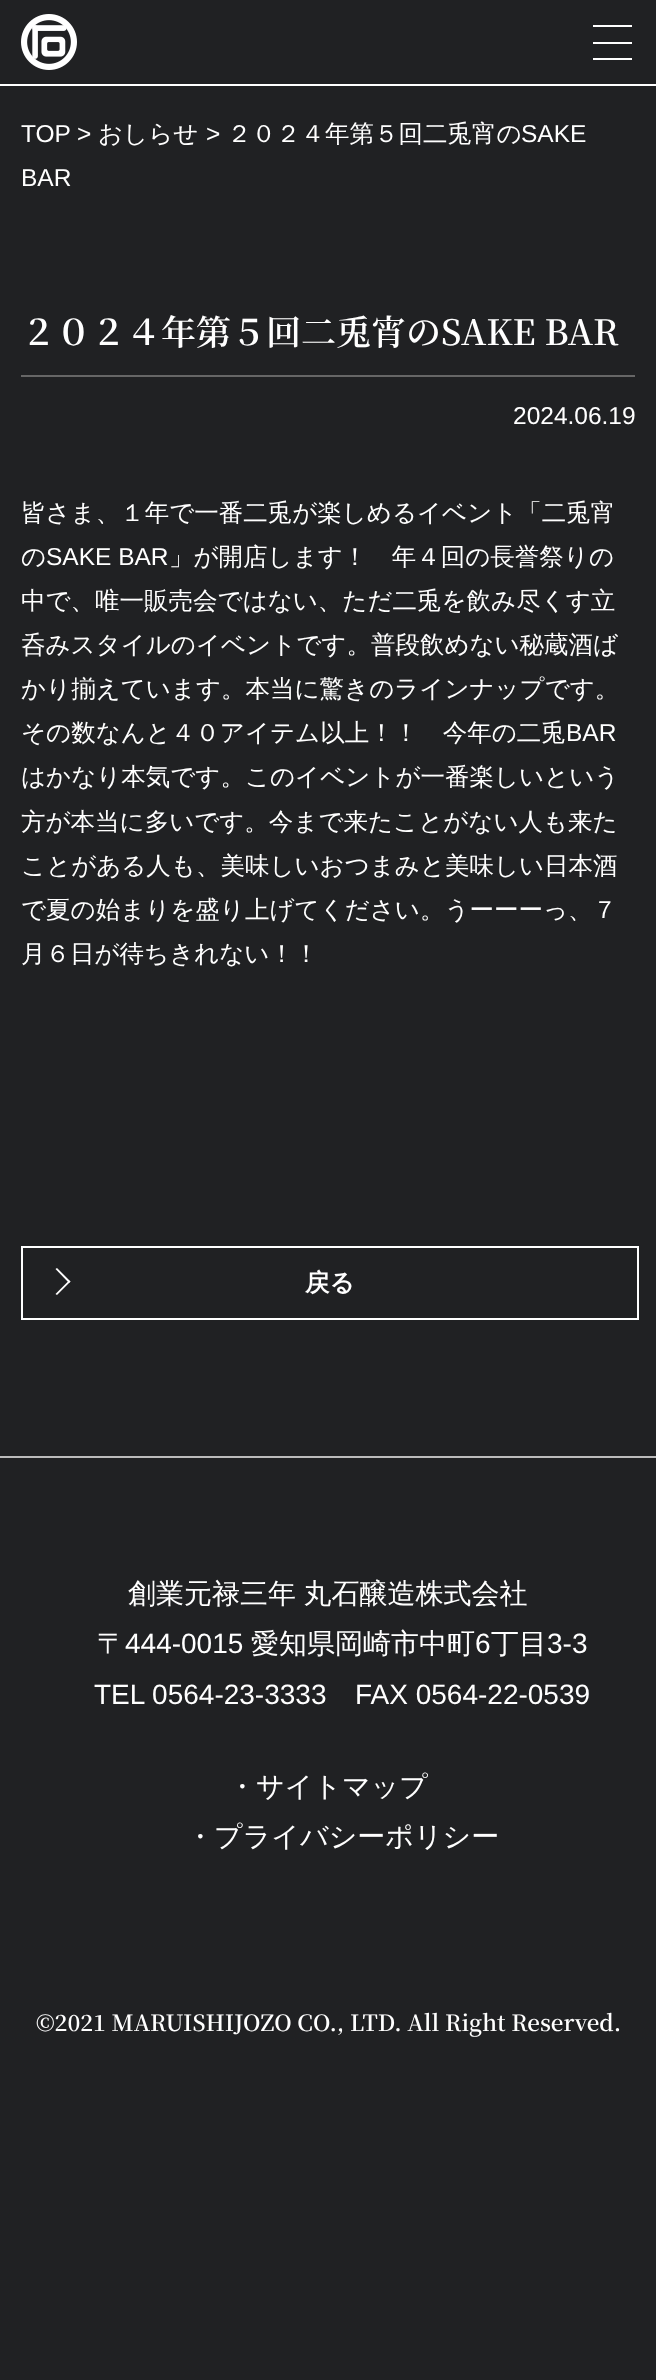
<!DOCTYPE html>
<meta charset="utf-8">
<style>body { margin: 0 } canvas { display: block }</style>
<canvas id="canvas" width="656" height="2380"></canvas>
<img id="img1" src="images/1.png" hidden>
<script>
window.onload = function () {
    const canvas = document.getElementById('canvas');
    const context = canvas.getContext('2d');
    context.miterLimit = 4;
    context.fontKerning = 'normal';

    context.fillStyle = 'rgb(32, 33, 35)';
    context.fillRect(0, 0, 656, 2380);
    context.fillStyle = 'rgb(255, 255, 255)';
    context.fillRect(0, 84, 656, 2);
    context.drawImage(document.getElementById('img1'), 21, 14, 56, 56);
    context.fillRect(593, 25, 39, 2);
    context.fillRect(593, 42, 39, 2);
    context.fillRect(593, 58, 39, 2);
    context.fillStyle = 'rgb(102, 102, 102)';
    context.fillRect(21, 375, 614, 2);
    context.strokeStyle = 'rgb(255, 255, 255)';
    context.lineWidth = 2;
    context.strokeRect(22, 1247, 616, 72);
    context.fillStyle = 'rgb(255, 255, 255)';
    context.beginPath();
    context.moveTo(55.5, 1269);
    context.lineTo(57, 1268);
    context.lineTo(70.5, 1281.5);
    context.lineTo(69, 1283);
    context.closePath();
    context.fill();
    context.beginPath();
    context.moveTo(55.5, 1294);
    context.lineTo(69, 1280.5);
    context.lineTo(70.5, 1281.5);
    context.lineTo(57, 1295);
    context.closePath();
    context.fill();
    context.fillStyle = 'rgb(187, 187, 187)';
    context.fillRect(0, 1456, 656, 2);
    context.font = '24.5px Liberation Sans';
    context.fillStyle = 'rgb(255, 255, 255)';
    context.fillText('TOP', 21, 142);
    context.fillText('>', 77, 142);
    context.font = '500 24.5px WenQuanYi Zen Hei';
    context.fillText('おしらせ', 98, 142);
    context.font = '24.5px Liberation Sans';
    context.fillText('>', 206, 142);
    context.font = '500 24.5px WenQuanYi Zen Hei';
    context.fillText('２０２４年第５回二兎宵の', 227, 142);
    context.font = '24.5px Liberation Sans';
    context.fillText('SAKE', 521, 142);
    context.fillText('BAR', 21, 186);
    context.font = '600 35px Noto Serif JP';
    context.fillText('２０２４年第５回二兎宵のSAKE BAR', 21, 345);
    context.font = '24.5px Liberation Sans';
    context.fillText('2024.06.19', 513, 424);
    context.font = '500 24.5px WenQuanYi Zen Hei';
    context.fillText('皆さま、１年で一番二兎が楽しめるイベント「二兎宵', 21, 521);
    context.fillText('の', 21, 565);
    context.font = '24.5px Liberation Sans';
    context.fillText('SAKE BAR', 46, 565);
    context.font = '500 24.5px WenQuanYi Zen Hei';
    context.fillText('」が開店します！　年４回の長誉祭りの', 169, 565);
    context.fillText('中で、唯一販売会ではない、ただ二兎を飲み尽くす立', 21, 609);
    context.fillText('呑みスタイルのイベントです。普段飲めない秘蔵酒ば', 21, 653);
    context.fillText('かり揃えています。本当に驚きのラインナップです。', 21, 697);
    context.fillText('その数なんと４０アイテム以上！！　今年の二兎', 21, 741);
    context.font = '24.5px Liberation Sans';
    context.fillText('BAR', 566, 741);
    context.font = '500 24.5px WenQuanYi Zen Hei';
    context.fillText('はかなり本気です。このイベントが一番楽しいという', 21, 785);
    context.fillText('方が本当に多いです。今まで来たことがない人も来た', 21, 830);
    context.fillText('ことがある人も、美味しいおつまみと美味しい日本酒', 21, 874);
    context.fillText('で夏の始まりを盛り上げてください。うーーーっ、７', 21, 918);
    context.fillText('月６日が待ちきれない！！', 21, 962);
    context.font = 'bold 24.5px WenQuanYi Zen Hei';
    context.fillText('戻る', 305, 1291);
    context.wordSpacing = '-1px';
    context.font = '500 28px WenQuanYi Zen Hei';
    context.fillText('創業元禄三年 丸石醸造株式会社', 128, 1603);
    context.wordSpacing = '0px';
    context.fillText('〒', 97, 1653);
    context.font = '28px Liberation Sans';
    context.fillText('444-0015', 125, 1653);
    context.font = '500 28px WenQuanYi Zen Hei';
    context.fillText('愛知県岡崎市中町', 251, 1653);
    context.font = '28px Liberation Sans';
    context.fillText('6', 475, 1653);
    context.font = '500 28px WenQuanYi Zen Hei';
    context.fillText('丁目', 491, 1653);
    context.font = '28px Liberation Sans';
    context.fillText('3-3', 547, 1653);
    context.fillText('TEL 0564-23-3333', 94, 1704);
    context.fillText('FAX 0564-22-0539', 355, 1704);
    context.font = '500 28px WenQuanYi Zen Hei';
    context.fillText('・サイトマップ', 228, 1796);
    context.fillText('・プライバシーポリシー', 186, 1846);
    context.font = '600 22.4px Noto Serif JP';
    context.fillText('©2021 MARUISHIJOZO CO., LTD. All Right Reserved.', 36, 2031);
};
</script>
